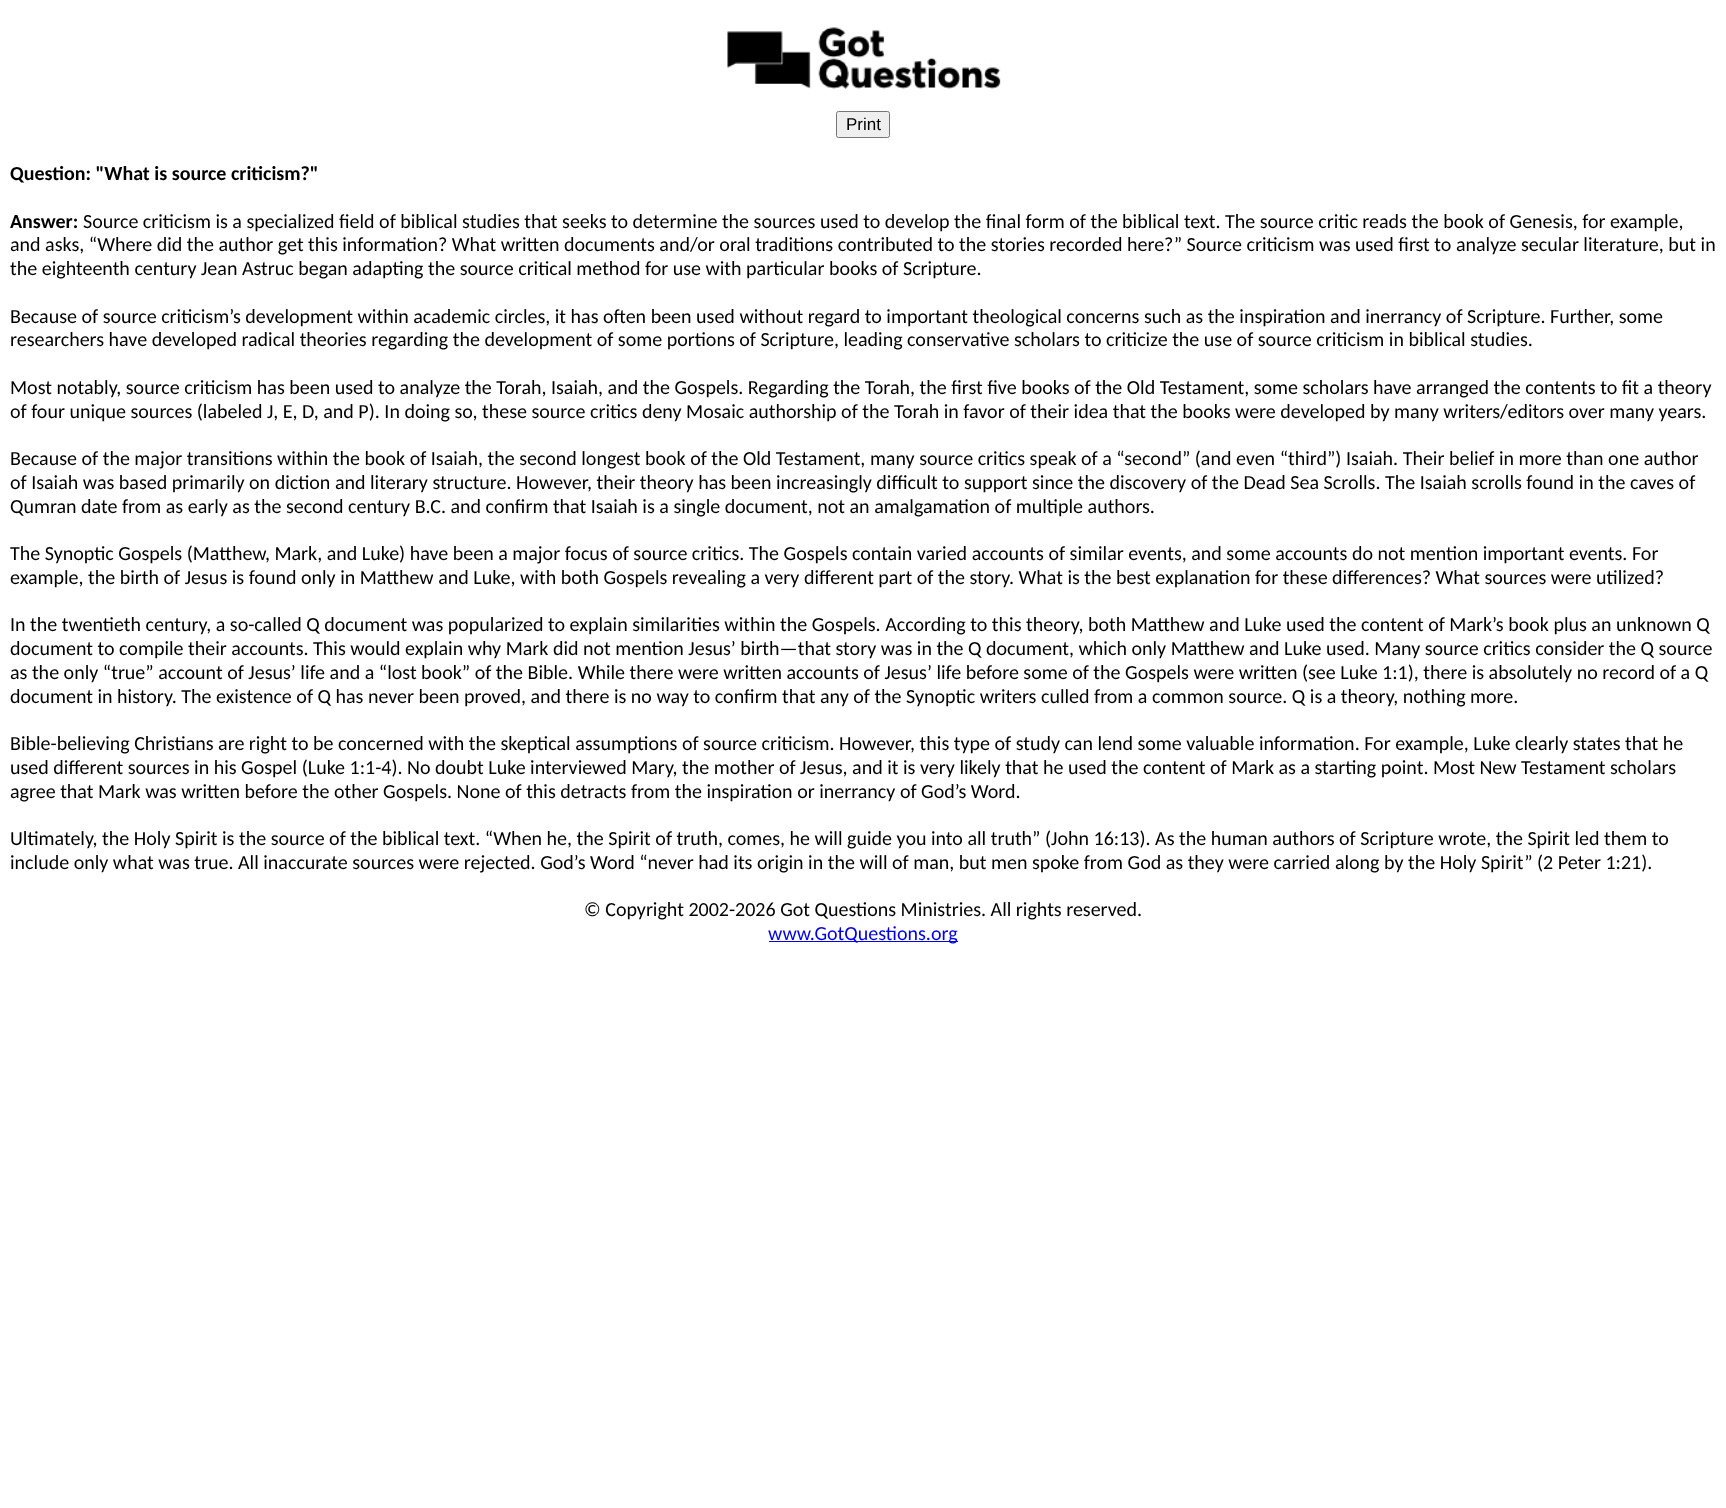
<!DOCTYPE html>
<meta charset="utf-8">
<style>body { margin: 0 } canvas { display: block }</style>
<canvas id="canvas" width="1726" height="1508"></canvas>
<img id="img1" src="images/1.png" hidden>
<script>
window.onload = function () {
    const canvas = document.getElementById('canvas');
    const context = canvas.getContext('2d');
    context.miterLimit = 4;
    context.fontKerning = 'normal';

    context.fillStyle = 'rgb(255, 255, 255)';
    context.fillRect(0, 0, 1726, 1508);
    context.drawImage(document.getElementById('img1'), 727, 27, 274, 62);
    context.fillStyle = 'rgb(239, 239, 239)';
    context.beginPath();
    context.roundRect(836.5, 111.5, 53, 26, 2);
    context.fill();
    context.strokeStyle = 'rgb(118, 118, 118)';
    context.stroke();
    context.fillStyle = 'rgb(0, 0, 238)';
    context.fillRect(769, 941, 189, 1);
    context.font = '17px Liberation Sans';
    context.fillStyle = 'rgb(0, 0, 0)';
    context.fillText('Print', 846, 130);
    context.font = 'bold 20px Carlito';
    context.fillText('Question: "What is source criticism?"', 10, 180);
    context.fillText('Answer:', 10, 228);
    context.font = '20px Carlito';
    context.fillText('Source criticism is a specialized field of biblical studies that seeks to determine the sources used to develop the final form of the biblical text. The source critic reads the book of Genesis, for example,', 83, 228);
    context.fillText('and asks, “Where did the author get this information? What written documents and/or oral traditions contributed to the stories recorded here?” Source criticism was used first to analyze secular literature, but in', 10, 251);
    context.fillText('the eighteenth century Jean Astruc began adapting the source critical method for use with particular books of Scripture.', 10, 275);
    context.fillText('Because of source criticism’s development within academic circles, it has often been used without regard to important theological concerns such as the inspiration and inerrancy of Scripture. Further, some', 10, 323);
    context.fillText('researchers have developed radical theories regarding the development of some portions of Scripture, leading conservative scholars to criticize the use of source criticism in biblical studies.', 10, 346);
    context.fillText('Most notably, source criticism has been used to analyze the Torah, Isaiah, and the Gospels. Regarding the Torah, the first five books of the Old Testament, some scholars have arranged the contents to fit a theory', 10, 394);
    context.fillText('of four unique sources (labeled J, E, D, and P). In doing so, these source critics deny Mosaic authorship of the Torah in favor of their idea that the books were developed by many writers/editors over many years.', 10, 418);
    context.fillText('Because of the major transitions within the book of Isaiah, the second longest book of the Old Testament, many source critics speak of a “second” (and even “third”) Isaiah. Their belief in more than one author', 10, 465);
    context.fillText('of Isaiah was based primarily on diction and literary structure. However, their theory has been increasingly difficult to support since the discovery of the Dead Sea Scrolls. The Isaiah scrolls found in the caves of', 10, 489);
    context.fillText('Qumran date from as early as the second century B.C. and confirm that Isaiah is a single document, not an amalgamation of multiple authors.', 10, 513);
    context.fillText('The Synoptic Gospels (Matthew, Mark, and Luke) have been a major focus of source critics. The Gospels contain varied accounts of similar events, and some accounts do not mention important events. For', 10, 560);
    context.fillText('example, the birth of Jesus is found only in Matthew and Luke, with both Gospels revealing a very different part of the story. What is the best explanation for these differences? What sources were utilized?', 10, 584);
    context.fillText('In the twentieth century, a so-called Q document was popularized to explain similarities within the Gospels. According to this theory, both Matthew and Luke used the content of Mark’s book plus an unknown Q', 10, 631);
    context.fillText('document to compile their accounts. This would explain why Mark did not mention Jesus’ birth—that story was in the Q document, which only Matthew and Luke used. Many source critics consider the Q source', 10, 655);
    context.fillText('as the only “true” account of Jesus’ life and a “lost book” of the Bible. While there were written accounts of Jesus’ life before some of the Gospels were written (see Luke 1:1), there is absolutely no record of a Q', 10, 679);
    context.fillText('document in history. The existence of Q has never been proved, and there is no way to confirm that any of the Synoptic writers culled from a common source. Q is a theory, nothing more.', 10, 703);
    context.fillText('Bible-believing Christians are right to be concerned with the skeptical assumptions of source criticism. However, this type of study can lend some valuable information. For example, Luke clearly states that he', 10, 750);
    context.fillText('used different sources in his Gospel (Luke 1:1-4). No doubt Luke interviewed Mary, the mother of Jesus, and it is very likely that he used the content of Mark as a starting point. Most New Testament scholars', 10, 774);
    context.fillText('agree that Mark was written before the other Gospels. None of this detracts from the inspiration or inerrancy of God’s Word.', 10, 798);
    context.fillText('Ultimately, the Holy Spirit is the source of the biblical text. “When he, the Spirit of truth, comes, he will guide you into all truth” (John 16:13). As the human authors of Scripture wrote, the Spirit led them to', 10, 845);
    context.fillText('include only what was true. All inaccurate sources were rejected. God’s Word “never had its origin in the will of man, but men spoke from God as they were carried along by the Holy Spirit” (2 Peter 1:21).', 10, 869);
    context.fillText('© Copyright 2002-2026 Got Questions Ministries. All rights reserved.', 584, 916);
    context.fillStyle = 'rgb(0, 0, 238)';
    context.fillText('www.GotQuestions.org', 768, 940);
};
</script>
